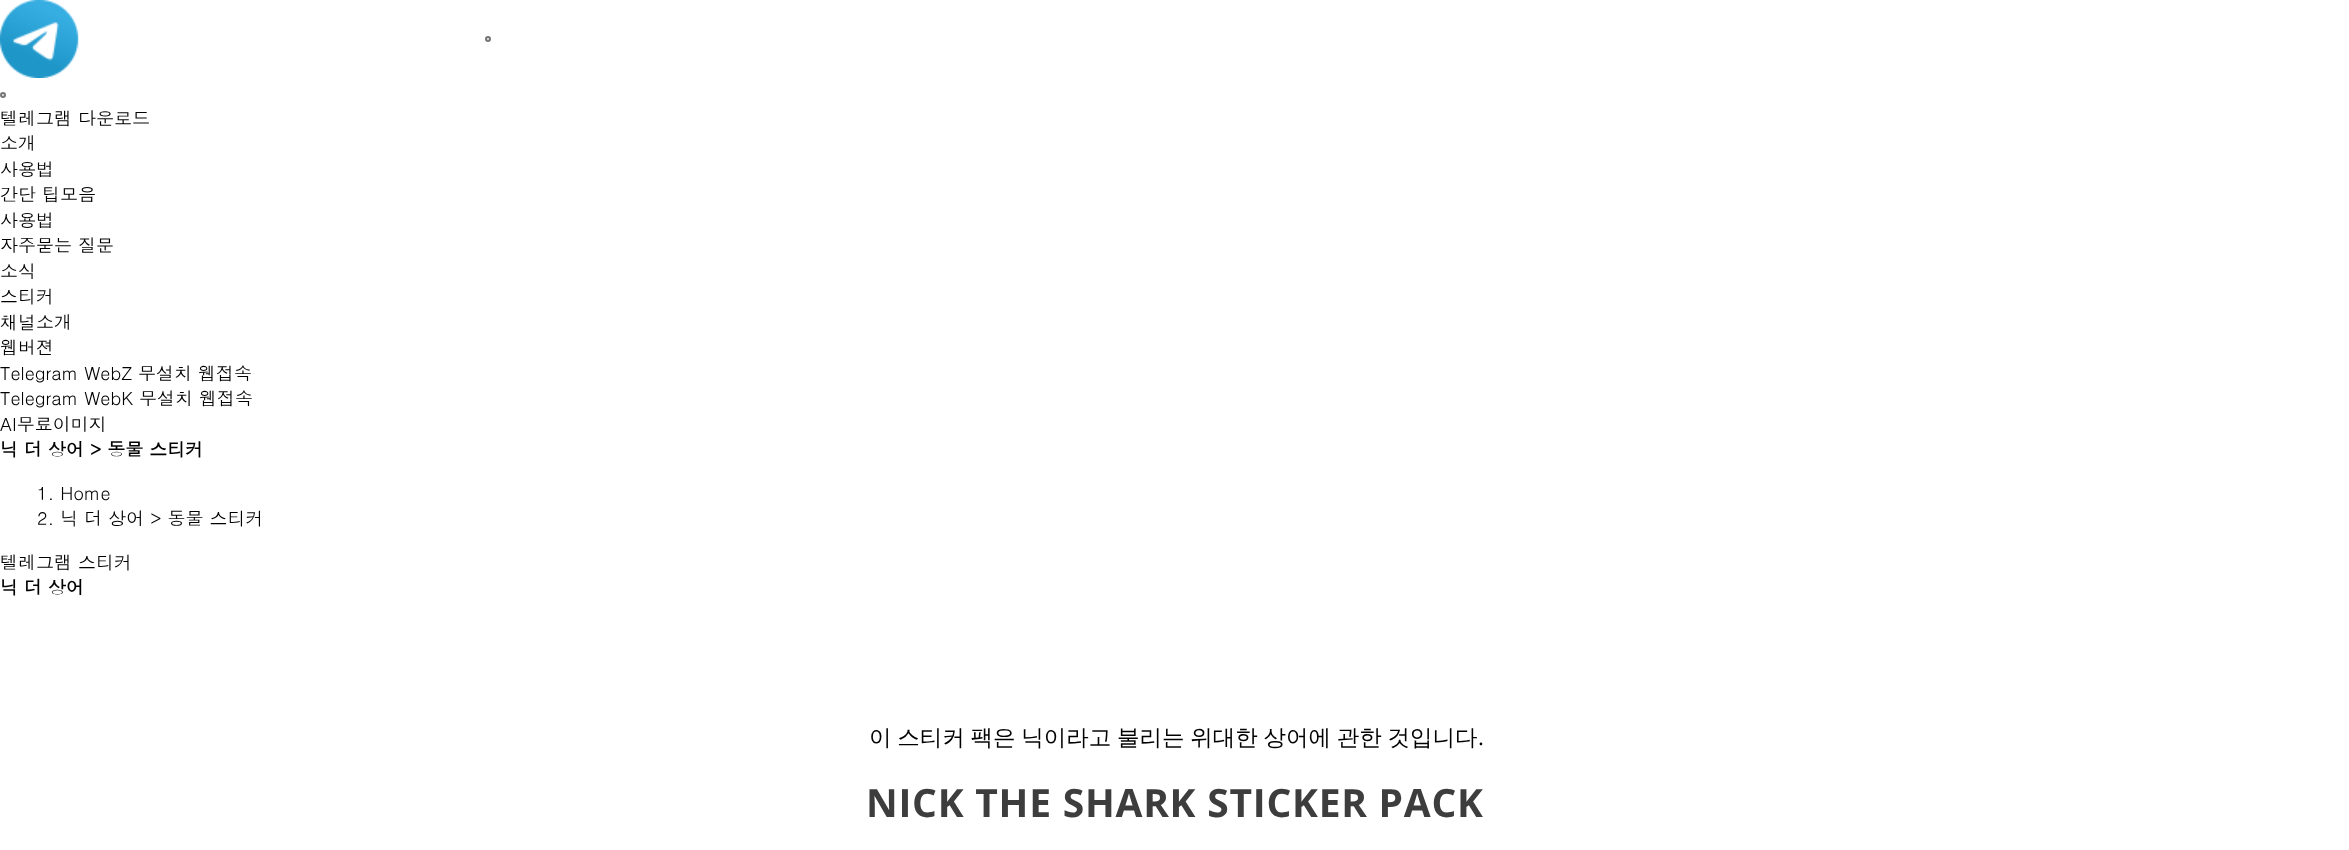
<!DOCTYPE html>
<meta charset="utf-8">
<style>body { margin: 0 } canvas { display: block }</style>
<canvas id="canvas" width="2349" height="850"></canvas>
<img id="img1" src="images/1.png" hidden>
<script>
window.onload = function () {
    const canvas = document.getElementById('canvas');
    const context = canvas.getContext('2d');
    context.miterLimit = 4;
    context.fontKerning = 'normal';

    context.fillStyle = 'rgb(255, 255, 255)';
    context.fillRect(0, 0, 2349, 850);
    context.drawImage(document.getElementById('img1'), 0, 0, 79, 78);
    context.fillStyle = 'rgb(239, 239, 239)';
    context.beginPath();
    context.arc(488, 39, 2, 0, 2 * Math.PI);
    context.fill();
    context.strokeStyle = 'rgb(118, 118, 118)';
    context.lineWidth = 2;
    context.stroke();
    context.beginPath();
    context.arc(3, 95, 2, 0, 2 * Math.PI);
    context.fill();
    context.stroke();
    context.font = '18px Dotum';
    context.fillStyle = 'rgb(0, 0, 0)';
    context.fillText('텔레그램 다운로드', 0, 125);
    context.fillText('소개', 0, 150);
    context.fillText('사용법', 0, 176);
    context.fillText('간단 팁모음', 0, 201);
    context.fillText('사용법', 0, 227);
    context.fillText('자주묻는 질문', 0, 252);
    context.fillText('소식', 0, 278);
    context.fillText('스티커', 0, 303);
    context.fillText('채널소개', 0, 329);
    context.fillText('웹버젼', 0, 354);
    context.fillText('Telegram WebZ 무설치 웹접속', 0, 380);
    context.fillText('Telegram WebK 무설치 웹접속', 0, 405);
    context.fillText('AI무료이미지', 0, 431);
    context.font = 'bold 18px Dotum';
    context.fillText('닉 더 상어 > 동물 스티커', 0, 456);
    context.font = '18px Dotum';
    context.fillText('1. Home', 37, 500);
    context.fillText('2. 닉 더 상어 > 동물 스티커', 37, 525);
    context.fillText('텔레그램 스티커', 0, 569);
    context.font = 'bold 18px Dotum';
    context.fillText('닉 더 상어', 0, 594);
    context.wordSpacing = '-1px';
    context.font = '500 22.5px WenQuanYi Zen Hei';
    context.fillText('이 스티커 팩은 닉이라고 불리는 위대한 상어에 관한 것입니다', 869, 745);
    context.wordSpacing = '0px';
    context.font = '22.5px Open Sans';
    context.fillText('.', 1478, 745);
    context.letterSpacing = '0.75px';
    context.font = 'bold 39px Open Sans';
    context.fillStyle = 'rgb(61, 61, 61)';
    context.fillText('NICK THE SHARK STICKER PACK', 866, 817);
};
</script>
